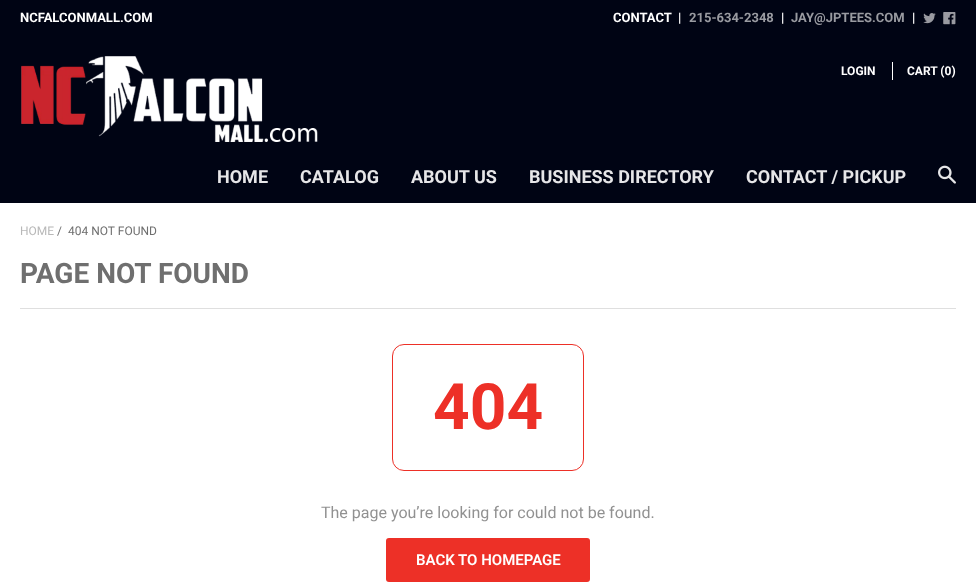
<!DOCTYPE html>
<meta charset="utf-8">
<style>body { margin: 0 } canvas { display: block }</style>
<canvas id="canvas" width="976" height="582"></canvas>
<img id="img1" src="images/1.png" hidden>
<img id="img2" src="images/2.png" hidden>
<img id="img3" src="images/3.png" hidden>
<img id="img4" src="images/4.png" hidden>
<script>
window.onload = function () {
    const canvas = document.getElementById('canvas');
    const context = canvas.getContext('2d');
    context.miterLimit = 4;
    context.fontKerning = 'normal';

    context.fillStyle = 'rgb(255, 255, 255)';
    context.fillRect(0, 0, 976, 582);
    context.fillStyle = 'rgb(0, 4, 20)';
    context.fillRect(0, 0, 976, 203);
    context.drawImage(document.getElementById('img1'), 923, 13, 13, 11);
    context.drawImage(document.getElementById('img2'), 943, 12, 13, 13);
    context.drawImage(document.getElementById('img3'), 21, 56, 297, 86);
    context.fillStyle = 'rgb(255, 255, 255)';
    context.fillRect(892, 62, 1, 18);
    context.drawImage(document.getElementById('img4'), 938, 165, 18, 19);
    context.fillStyle = 'rgb(223, 223, 223)';
    context.fillRect(20, 308, 936, 1);
    context.beginPath();
    context.roundRect(392.5, 344.5, 191, 126, 11.5);
    context.strokeStyle = 'rgb(237, 48, 39)';
    context.stroke();
    context.fillStyle = 'rgb(237, 48, 39)';
    context.beginPath();
    context.roundRect(386, 538, 204, 44, 3);
    context.fill();
    context.font = 'bold 13px Roboto';
    context.fillStyle = 'rgb(255, 255, 255)';
    context.fillText('NCFALCONMALL.COM', 20, 22);
    context.fillText('CONTACT', 613, 22);
    context.fillText('|', 678, 22);
    context.fillStyle = 'rgb(153, 155, 161)';
    context.fillText('215-634-2348', 689, 22);
    context.fillStyle = 'rgb(255, 255, 255)';
    context.fillText('|', 781, 22);
    context.fillStyle = 'rgb(153, 155, 161)';
    context.fillText('JAY@JPTEES.COM', 791, 22);
    context.fillStyle = 'rgb(255, 255, 255)';
    context.fillText('|', 912, 22);
    context.font = 'bold 12px Roboto';
    context.fillText('LOGIN', 841, 75);
    context.fillText('CART (0)', 907, 75);
    context.font = 'bold 18px Roboto';
    context.fillStyle = 'rgb(230, 230, 232)';
    context.fillText('HOME', 217, 183);
    context.fillText('CATALOG', 300, 183);
    context.fillText('ABOUT US', 411, 183);
    context.fillText('BUSINESS DIRECTORY', 529, 183);
    context.fillText('CONTACT / PICKUP', 746, 183);
    context.font = '12px Roboto';
    context.fillStyle = 'rgb(184, 184, 184)';
    context.fillText('HOME', 20, 235);
    context.fillStyle = 'rgb(111, 111, 111)';
    context.fillText('/', 57, 235);
    context.fillText('404 NOT FOUND', 68, 235);
    context.font = 'bold 28px Roboto';
    context.fillText('PAGE NOT FOUND', 20, 283);
    context.font = 'bold 64px Roboto';
    context.fillStyle = 'rgb(237, 48, 39)';
    context.fillText('404', 433, 429);
    context.font = '16px Roboto';
    context.fillStyle = 'rgb(145, 145, 145)';
    context.fillText('The page you’re looking for could not be found.', 321, 518);
    context.font = '600 15px Roboto';
    context.fillStyle = 'rgb(255, 255, 255)';
    context.fillText('BACK TO HOMEPAGE', 416, 565);
};
</script>
